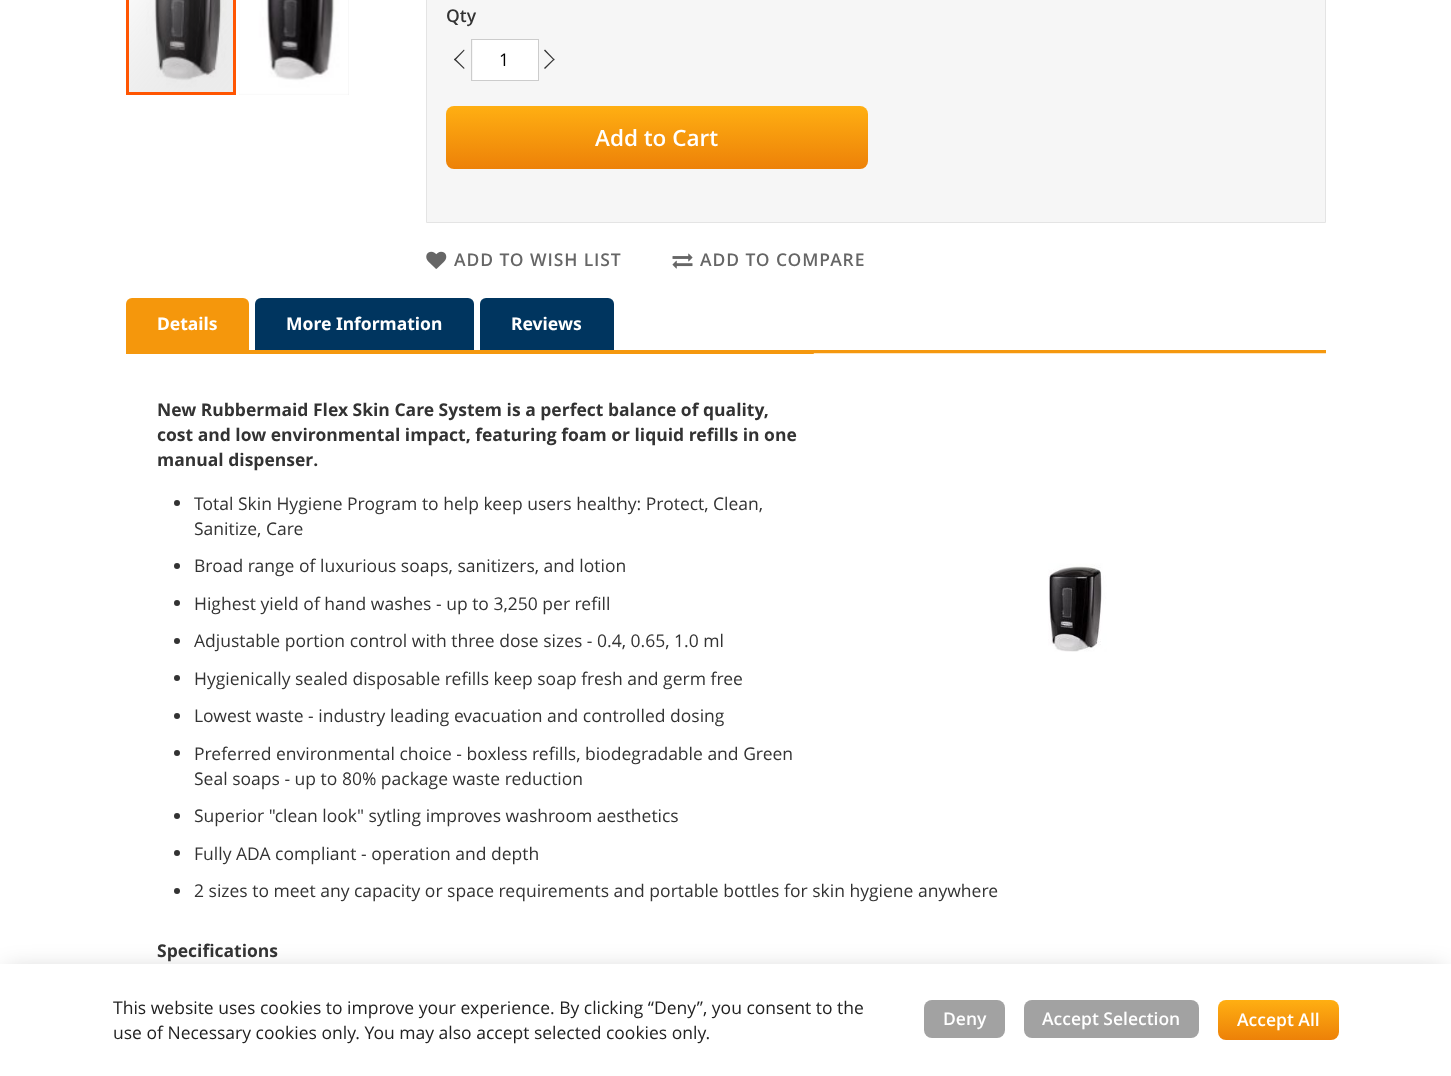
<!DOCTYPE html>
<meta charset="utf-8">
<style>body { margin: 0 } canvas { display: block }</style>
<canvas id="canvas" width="1451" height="1076"></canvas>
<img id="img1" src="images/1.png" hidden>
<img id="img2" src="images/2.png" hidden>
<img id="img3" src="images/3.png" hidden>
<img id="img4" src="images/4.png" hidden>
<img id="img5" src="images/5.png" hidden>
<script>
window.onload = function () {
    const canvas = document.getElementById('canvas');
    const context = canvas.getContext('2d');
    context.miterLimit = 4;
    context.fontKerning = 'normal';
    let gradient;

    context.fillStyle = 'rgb(255, 255, 255)';
    context.fillRect(0, 0, 1451, 1076);
    context.drawImage(document.getElementById('img1'), 129, 0, 104, 92);
    context.strokeStyle = 'rgb(255, 85, 1)';
    context.lineWidth = 3;
    context.strokeRect(127.5, -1.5, 107, 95);
    context.fillStyle = 'rgb(235, 235, 235)';
    context.fillRect(239, 0, 110, 95);
    context.drawImage(document.getElementById('img2'), 239, 0, 110, 95);
    context.fillStyle = 'rgb(246, 246, 246)';
    context.beginPath();
    context.rect(426.5, -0.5, 899, 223);
    context.fill();
    context.strokeStyle = 'rgb(228, 228, 228)';
    context.lineWidth = 1;
    context.stroke();
    context.fillStyle = 'rgb(51, 51, 51)';
    context.beginPath();
    context.moveTo(455, 58.5);
    context.lineTo(464.5, 68);
    context.lineTo(464, 69);
    context.lineTo(454, 59.5);
    context.closePath();
    context.fill();
    context.beginPath();
    context.moveTo(464, 49.5);
    context.lineTo(464.5, 50.5);
    context.lineTo(455, 60.5);
    context.lineTo(454, 59.5);
    context.closePath();
    context.fill();
    context.fillStyle = 'rgb(255, 255, 255)';
    context.fillRect(473, 40, 65, 40);
    context.strokeStyle = 'rgb(204, 204, 204)';
    context.strokeRect(471.5, 39.5, 67, 41);
    context.fillStyle = 'rgb(51, 51, 51)';
    context.beginPath();
    context.moveTo(554, 60.5);
    context.lineTo(544, 50.5);
    context.lineTo(545, 49.5);
    context.lineTo(554.5, 59.5);
    context.closePath();
    context.fill();
    context.beginPath();
    context.moveTo(545, 69);
    context.lineTo(544, 68);
    context.lineTo(554, 58.5);
    context.lineTo(554.5, 59.5);
    context.closePath();
    context.fill();
    gradient = context.createLinearGradient(657, 106, 657, 169);
    gradient.addColorStop(0, 'rgb(255, 175, 18)');
    gradient.addColorStop(1, 'rgb(237, 129, 8)');
    context.fillStyle = gradient;
    context.beginPath();
    context.roundRect(446, 106, 422, 63, 8);
    context.fill();
    context.drawImage(document.getElementById('img3'), 426, 251, 21, 18);
    context.drawImage(document.getElementById('img4'), 672, 253, 21, 16);
    context.fillStyle = 'rgb(245, 151, 12)';
    context.beginPath();
    context.roundRect(126, 298, 123, 52, [6, 6, 0, 0]);
    context.fill();
    context.fillStyle = 'rgb(0, 53, 95)';
    context.beginPath();
    context.roundRect(255, 298, 219, 52, [6, 6, 0, 0]);
    context.fill();
    context.beginPath();
    context.roundRect(480, 298, 134, 52, [6, 6, 0, 0]);
    context.fill();
    context.fillStyle = 'rgb(245, 152, 14)';
    context.fillRect(126, 350, 1200, 4);
    context.drawImage(document.getElementById('img5'), 813, 353, 513, 299);
    context.fillStyle = 'rgb(51, 51, 51)';
    context.beginPath();
    context.arc(177, 503, 3, 0, 2 * Math.PI);
    context.fill();
    context.beginPath();
    context.arc(177, 566, 3, 0, 2 * Math.PI);
    context.fill();
    context.beginPath();
    context.arc(177, 603, 3, 0, 2 * Math.PI);
    context.fill();
    context.beginPath();
    context.arc(177, 641, 3, 0, 2 * Math.PI);
    context.fill();
    context.beginPath();
    context.arc(177, 678, 3, 0, 2 * Math.PI);
    context.fill();
    context.beginPath();
    context.arc(177, 716, 3, 0, 2 * Math.PI);
    context.fill();
    context.beginPath();
    context.arc(177, 753, 3, 0, 2 * Math.PI);
    context.fill();
    context.beginPath();
    context.arc(177, 816, 3, 0, 2 * Math.PI);
    context.fill();
    context.beginPath();
    context.arc(177, 853, 3, 0, 2 * Math.PI);
    context.fill();
    context.beginPath();
    context.arc(177, 891, 3, 0, 2 * Math.PI);
    context.fill();
    context.fillStyle = 'rgba(0, 0, 0, 0.2)';
    context.filter = 'blur(12.5px)';
    context.beginPath();
    context.rect(6, 970, 1439, 100);
    context.fill();
    context.filter = 'none';
    context.fillStyle = 'rgb(255, 255, 255)';
    context.fillRect(0, 964, 1451, 112);
    context.fillStyle = 'rgb(162, 162, 162)';
    context.beginPath();
    context.roundRect(924, 1000, 81, 38, 8);
    context.fill();
    context.beginPath();
    context.roundRect(1024, 1000, 175, 38, 8);
    context.fill();
    gradient = context.createLinearGradient(1278, 1000, 1278, 1040);
    gradient.addColorStop(0, 'rgb(255, 175, 18)');
    gradient.addColorStop(1, 'rgb(237, 129, 8)');
    context.fillStyle = gradient;
    context.beginPath();
    context.roundRect(1218, 1000, 121, 40, 8);
    context.fill();
    context.font = '600 17.5px Open Sans';
    context.fillStyle = 'rgb(51, 51, 51)';
    context.fillText('Qty', 446, 22);
    context.font = '17.5px Open Sans';
    context.fillStyle = 'rgb(0, 0, 0)';
    context.fillText('1', 499, 66);
    context.font = '600 22.5px Open Sans';
    context.fillStyle = 'rgb(255, 255, 255)';
    context.fillText('Add to Cart', 595, 146);
    context.letterSpacing = '0.9px';
    context.font = '600 17.5px Open Sans';
    context.fillStyle = 'rgb(102, 102, 102)';
    context.fillText('ADD TO WISH LIST', 454, 266);
    context.fillText('ADD TO COMPARE', 700, 266);
    context.letterSpacing = '0px';
    context.font = 'bold 17.5px Noto Sans';
    context.fillStyle = 'rgb(255, 255, 255)';
    context.fillText('Details', 157, 330);
    context.fillText('More Information', 286, 330);
    context.fillText('Reviews', 511, 330);
    context.font = 'bold 17.5px Open Sans';
    context.fillStyle = 'rgb(51, 51, 51)';
    context.fillText('New Rubbermaid Flex Skin Care System is a perfect balance of quality,', 157, 416);
    context.fillText('cost and low environmental impact, featuring foam or liquid refills in one', 157, 441);
    context.fillText('manual dispenser.', 157, 466);
    context.font = '17.5px Open Sans';
    context.fillText('Total Skin Hygiene Program to help keep users healthy: Protect, Clean,', 194, 510);
    context.fillText('Sanitize, Care', 194, 535);
    context.fillText('Broad range of luxurious soaps, sanitizers, and lotion', 194, 572);
    context.fillText('Highest yield of hand washes - up to 3,250 per refill', 194, 610);
    context.fillText('Adjustable portion control with three dose sizes - 0.4, 0.65, 1.0 ml', 194, 647);
    context.fillText('Hygienically sealed disposable refills keep soap fresh and germ free', 194, 685);
    context.fillText('Lowest waste - industry leading evacuation and controlled dosing', 194, 722);
    context.fillText('Preferred environmental choice - boxless refills, biodegradable and Green', 194, 760);
    context.fillText('Seal soaps - up to 80% package waste reduction', 194, 785);
    context.fillText('Superior "clean look" sytling improves washroom aesthetics', 194, 822);
    context.fillText('Fully ADA compliant - operation and depth', 194, 860);
    context.fillText('2 sizes to meet any capacity or space requirements and portable bottles for skin hygiene anywhere', 194, 897);
    context.font = 'bold 17.5px Open Sans';
    context.fillText('Specifications', 157, 957);
    context.font = '17.5px Open Sans';
    context.fillStyle = 'rgb(34, 34, 34)';
    context.fillText('This website uses cookies to improve your experience. By clicking “Deny”, you consent to the', 113, 1014);
    context.fillText('use of Necessary cookies only. You may also accept selected cookies only.', 113, 1039);
    context.font = '600 17.5px Open Sans';
    context.fillStyle = 'rgb(255, 255, 255)';
    context.fillText('Deny', 943, 1025);
    context.fillText('Accept Selection', 1042, 1025);
    context.fillText('Accept All', 1237, 1026);
};
</script>
